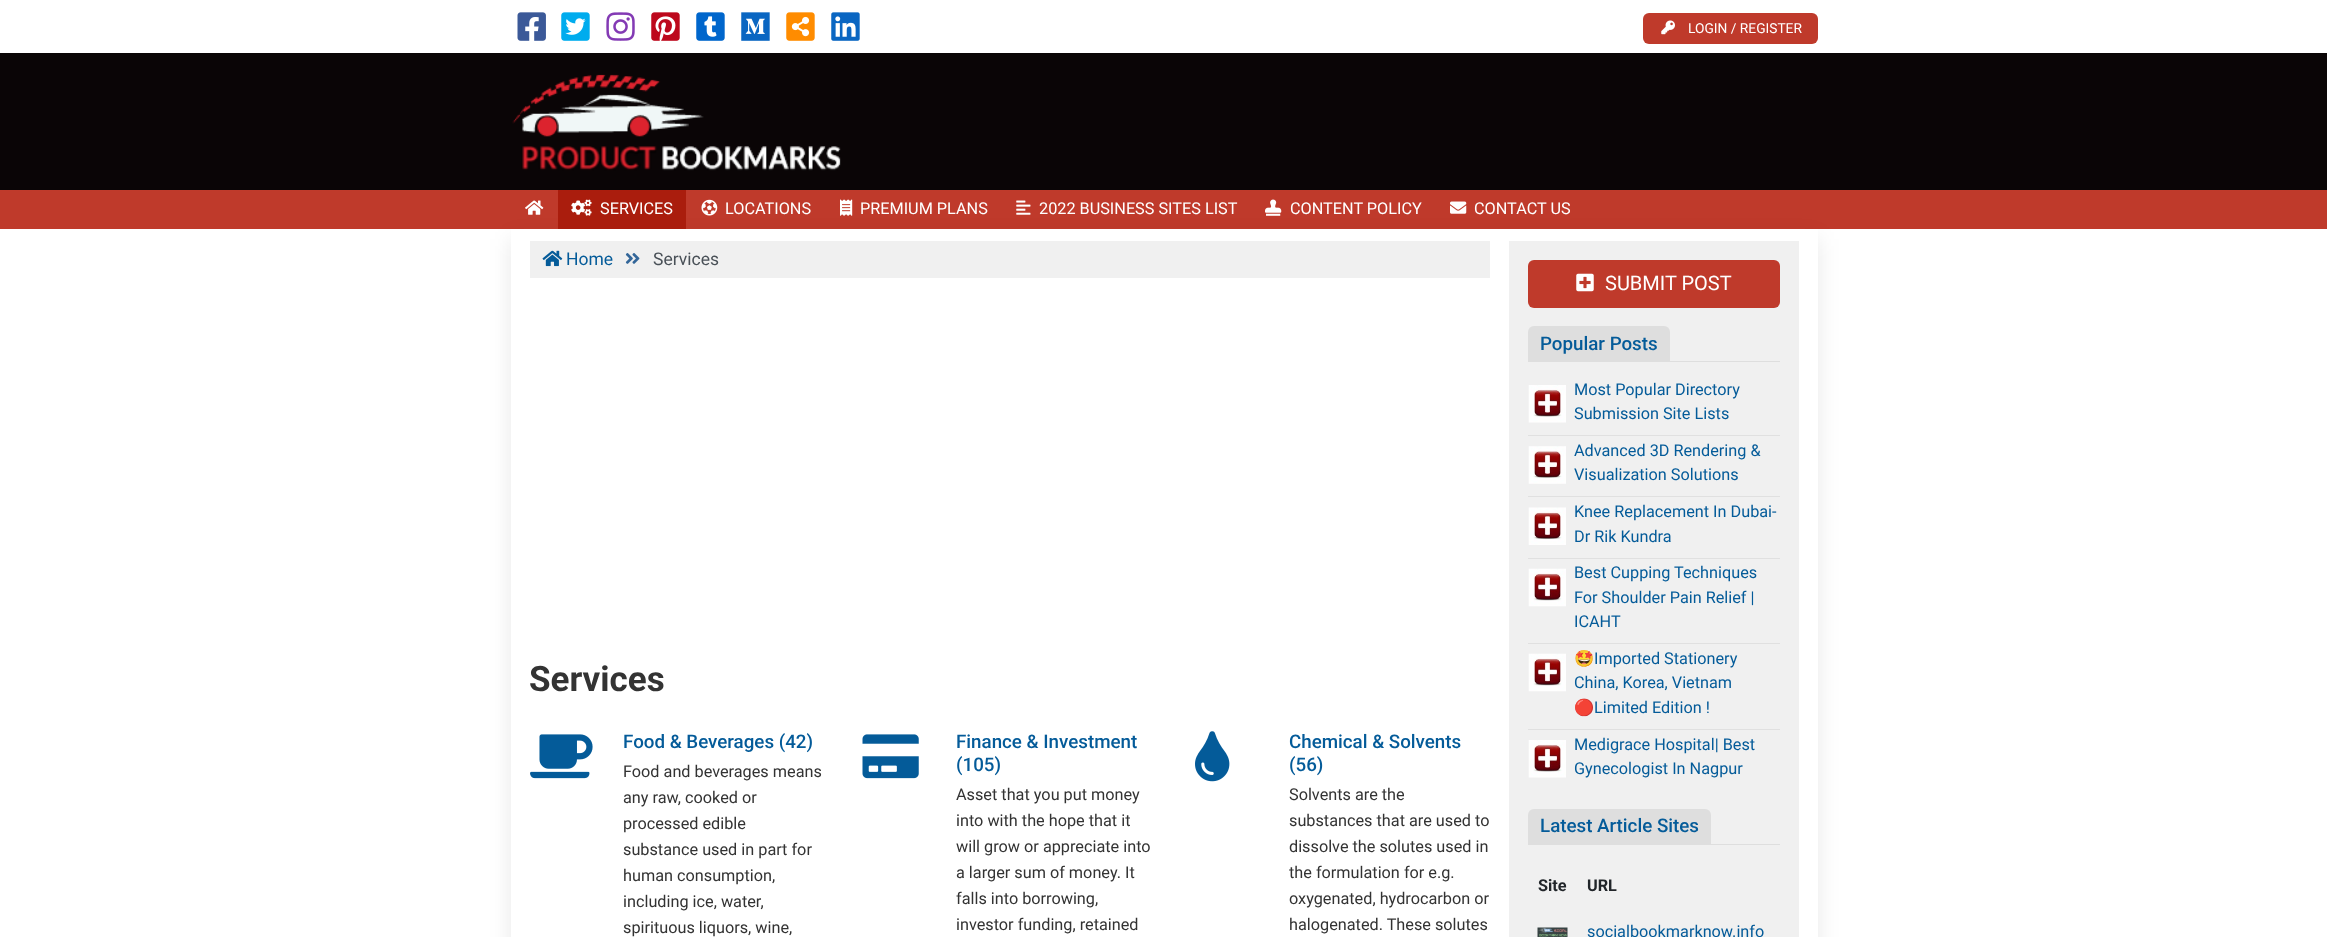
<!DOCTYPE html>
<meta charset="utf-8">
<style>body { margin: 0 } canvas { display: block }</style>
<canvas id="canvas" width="2327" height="937"></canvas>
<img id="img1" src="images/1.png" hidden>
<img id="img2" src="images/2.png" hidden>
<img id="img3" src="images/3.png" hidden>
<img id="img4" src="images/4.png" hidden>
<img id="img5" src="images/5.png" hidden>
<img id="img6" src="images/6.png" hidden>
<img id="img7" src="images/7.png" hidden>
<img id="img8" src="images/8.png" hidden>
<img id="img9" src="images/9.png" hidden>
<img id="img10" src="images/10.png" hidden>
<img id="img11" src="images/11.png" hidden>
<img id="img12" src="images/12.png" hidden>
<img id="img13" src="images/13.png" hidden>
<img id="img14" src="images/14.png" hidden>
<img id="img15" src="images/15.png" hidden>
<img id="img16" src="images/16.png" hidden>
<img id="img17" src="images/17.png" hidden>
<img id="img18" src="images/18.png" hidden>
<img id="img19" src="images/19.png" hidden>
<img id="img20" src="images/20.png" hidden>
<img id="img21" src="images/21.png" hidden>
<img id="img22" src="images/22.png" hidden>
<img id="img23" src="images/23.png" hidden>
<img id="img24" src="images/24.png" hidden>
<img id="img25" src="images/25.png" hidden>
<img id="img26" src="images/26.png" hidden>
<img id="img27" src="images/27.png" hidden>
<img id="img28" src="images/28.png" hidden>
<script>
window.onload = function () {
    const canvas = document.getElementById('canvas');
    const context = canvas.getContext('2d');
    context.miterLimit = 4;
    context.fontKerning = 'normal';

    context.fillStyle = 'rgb(255, 255, 255)';
    context.fillRect(0, 0, 2327, 937);
    context.drawImage(document.getElementById('img1'), 517, 12, 29, 29);
    context.drawImage(document.getElementById('img2'), 561, 12, 29, 29);
    context.drawImage(document.getElementById('img3'), 606, 12, 29, 29);
    context.drawImage(document.getElementById('img4'), 651, 12, 29, 29);
    context.drawImage(document.getElementById('img5'), 696, 12, 29, 29);
    context.drawImage(document.getElementById('img6'), 741, 12, 29, 29);
    context.drawImage(document.getElementById('img7'), 786, 12, 29, 29);
    context.drawImage(document.getElementById('img8'), 831, 12, 29, 29);
    context.fillStyle = 'rgb(191, 58, 43)';
    context.beginPath();
    context.roundRect(1643, 13, 175, 31, 6);
    context.fill();
    context.drawImage(document.getElementById('img9'), 1661, 20, 14, 15);
    context.fillStyle = 'rgb(10, 5, 6)';
    context.fillRect(0, 53, 2327, 137);
    context.drawImage(document.getElementById('img10'), 512, 74, 329, 97);
    context.fillStyle = 'rgb(191, 58, 43)';
    context.fillRect(0, 190, 2327, 39);
    context.fillStyle = 'rgba(0, 0, 0, 0.09)';
    context.filter = 'blur(11px)';
    context.beginPath();
    context.rect(511, 239, 1307, 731);
    context.fill();
    context.filter = 'none';
    context.fillStyle = 'rgb(191, 58, 43)';
    context.fillRect(524, 228, 1281, 1);
    context.drawImage(document.getElementById('img11'), 525, 200, 19, 15);
    context.fillStyle = 'rgb(170, 29, 13)';
    context.fillRect(558, 190, 128, 39);
    context.drawImage(document.getElementById('img12'), 571, 199, 21, 17);
    context.drawImage(document.getElementById('img13'), 701, 199, 17, 17);
    context.drawImage(document.getElementById('img14'), 840, 199, 13, 17);
    context.drawImage(document.getElementById('img15'), 1016, 200, 15, 15);
    context.drawImage(document.getElementById('img16'), 1265, 199, 17, 17);
    context.drawImage(document.getElementById('img17'), 1450, 201, 17, 13);
    context.fillStyle = 'rgb(255, 255, 255)';
    context.fillRect(511, 229, 1307, 708);
    context.fillStyle = 'rgb(240, 240, 240)';
    context.fillRect(530, 241, 960, 37);
    context.drawImage(document.getElementById('img18'), 542, 250, 21, 17);
    context.drawImage(document.getElementById('img19'), 625, 253, 15, 11);
    context.drawImage(document.getElementById('img20'), 530, 734, 63, 45);
    context.drawImage(document.getElementById('img21'), 862, 734, 57, 45);
    context.drawImage(document.getElementById('img22'), 1195, 731, 35, 51);
    context.fillRect(1509, 241, 290, 696);
    context.fillStyle = 'rgb(191, 58, 43)';
    context.beginPath();
    context.roundRect(1528, 260, 252, 48, 6);
    context.fill();
    context.drawImage(document.getElementById('img23'), 1576, 273, 18, 19);
    context.fillStyle = 'rgb(222, 222, 222)';
    context.fillRect(1528, 361, 252, 1);
    context.beginPath();
    context.roundRect(1528, 326, 142, 35, [6, 6, 0, 0]);
    context.fill();
    context.fillStyle = 'rgb(224, 224, 224)';
    context.fillRect(1528, 435, 252, 1);
    context.drawImage(document.getElementById('img24'), 1528, 385, 38, 38);
    context.fillRect(1528, 496, 252, 1);
    context.drawImage(document.getElementById('img25'), 1528, 446, 38, 38);
    context.fillRect(1528, 558, 252, 1);
    context.drawImage(document.getElementById('img26'), 1528, 507, 38, 38);
    context.fillRect(1528, 643, 252, 1);
    context.drawImage(document.getElementById('img27'), 1528, 568, 38, 39);
    context.fillRect(1528, 729, 252, 1);
    context.drawImage(document.getElementById('img27'), 1528, 653, 38, 39);
    context.drawImage(document.getElementById('img24'), 1528, 740, 38, 38);
    context.fillStyle = 'rgb(222, 222, 222)';
    context.fillRect(1528, 844, 252, 1);
    context.beginPath();
    context.roundRect(1528, 809, 183, 35, [6, 6, 0, 0]);
    context.fill();
    context.drawImage(document.getElementById('img28'), 1537, 927, 31, 10);
    context.font = '13.75px Roboto';
    context.fillStyle = 'rgb(255, 255, 255)';
    context.fillText('LOGIN / REGISTER', 1688, 33);
    context.font = '16.25px Roboto';
    context.fillText('SERVICES', 600, 214);
    context.fillText('LOCATIONS', 725, 214);
    context.fillText('PREMIUM PLANS', 860, 214);
    context.fillText('2022 BUSINESS SITES LIST', 1039, 214);
    context.fillText('CONTENT POLICY', 1290, 214);
    context.fillText('CONTACT US', 1474, 214);
    context.font = '17.5px Roboto';
    context.fillStyle = 'rgb(4, 91, 153)';
    context.fillText('Home', 566, 265);
    context.fillStyle = 'rgb(73, 80, 87)';
    context.fillText('Services', 653, 265);
    context.font = 'bold 35px Roboto';
    context.fillStyle = 'rgb(51, 51, 51)';
    context.fillText('Services', 529, 691);
    context.font = '500 18.75px Roboto';
    context.fillStyle = 'rgb(4, 91, 153)';
    context.fillText('Food & Beverages (42)', 623, 748);
    context.font = '16.25px Roboto';
    context.fillStyle = 'rgb(51, 51, 51)';
    context.fillText('Food and beverages means', 623, 777);
    context.fillText('any raw, cooked or', 623, 803);
    context.fillText('processed edible', 623, 829);
    context.fillText('substance used in part for', 623, 855);
    context.fillText('human consumption,', 623, 881);
    context.fillText('including ice, water,', 623, 907);
    context.fillText('spirituous liquors, wine,', 623, 933);
    context.font = '500 18.75px Roboto';
    context.fillStyle = 'rgb(4, 91, 153)';
    context.fillText('Finance & Investment', 956, 748);
    context.fillText('(105)', 956, 771);
    context.font = '16.25px Roboto';
    context.fillStyle = 'rgb(51, 51, 51)';
    context.fillText('Asset that you put money', 956, 800);
    context.fillText('into with the hope that it', 956, 826);
    context.fillText('will grow or appreciate into', 956, 852);
    context.fillText('a larger sum of money. It', 956, 878);
    context.fillText('falls into borrowing,', 956, 904);
    context.fillText('investor funding, retained', 956, 930);
    context.font = '500 18.75px Roboto';
    context.fillStyle = 'rgb(4, 91, 153)';
    context.fillText('Chemical & Solvents', 1289, 748);
    context.fillText('(56)', 1289, 771);
    context.font = '16.25px Roboto';
    context.fillStyle = 'rgb(51, 51, 51)';
    context.fillText('Solvents are the', 1289, 800);
    context.fillText('substances that are used to', 1289, 826);
    context.fillText('dissolve the solutes used in', 1289, 852);
    context.fillText('the formulation for e.g.', 1289, 878);
    context.fillText('oxygenated, hydrocarbon or', 1289, 904);
    context.fillText('halogenated. These solutes', 1289, 930);
    context.font = '20px Roboto';
    context.fillStyle = 'rgb(255, 255, 255)';
    context.fillText('SUBMIT POST', 1605, 290);
    context.font = '500 18.75px Roboto';
    context.fillStyle = 'rgb(4, 91, 153)';
    context.fillText('Popular Posts', 1540, 350);
    context.font = '16.25px Roboto';
    context.fillText('Most Popular Directory', 1574, 395);
    context.fillText('Submission Site Lists', 1574, 419);
    context.fillText('Advanced 3D Rendering &', 1574, 456);
    context.fillText('Visualization Solutions', 1574, 480);
    context.fillText('Knee Replacement In Dubai-', 1574, 517);
    context.fillText('Dr Rik Kundra', 1574, 542);
    context.fillText('Best Cupping Techniques', 1574, 578);
    context.fillText('For Shoulder Pain Relief |', 1574, 603);
    context.fillText('ICAHT', 1574, 627);
    context.font = '16.25px Noto Color Emoji';
    context.fillText('🤩', 1574, 664);
    context.font = '16.25px Roboto';
    context.fillText('Imported Stationery', 1594, 664);
    context.fillText('China, Korea, Vietnam', 1574, 688);
    context.font = '16.25px Noto Color Emoji';
    context.fillText('🔴', 1574, 713);
    context.font = '16.25px Roboto';
    context.fillText('Limited Edition !', 1594, 713);
    context.fillText('Medigrace Hospital| Best', 1574, 750);
    context.fillText('Gynecologist In Nagpur', 1574, 774);
    context.font = '500 18.75px Roboto';
    context.fillText('Latest Article Sites', 1540, 832);
    context.font = 'bold 16.25px Roboto';
    context.fillStyle = 'rgb(33, 37, 41)';
    context.fillText('Site', 1538, 891);
    context.fillText('URL', 1587, 891);
    context.font = '16.25px Roboto';
    context.fillStyle = 'rgb(4, 91, 153)';
    context.fillText('socialbookmarknow.info', 1587, 937);
};
</script>
